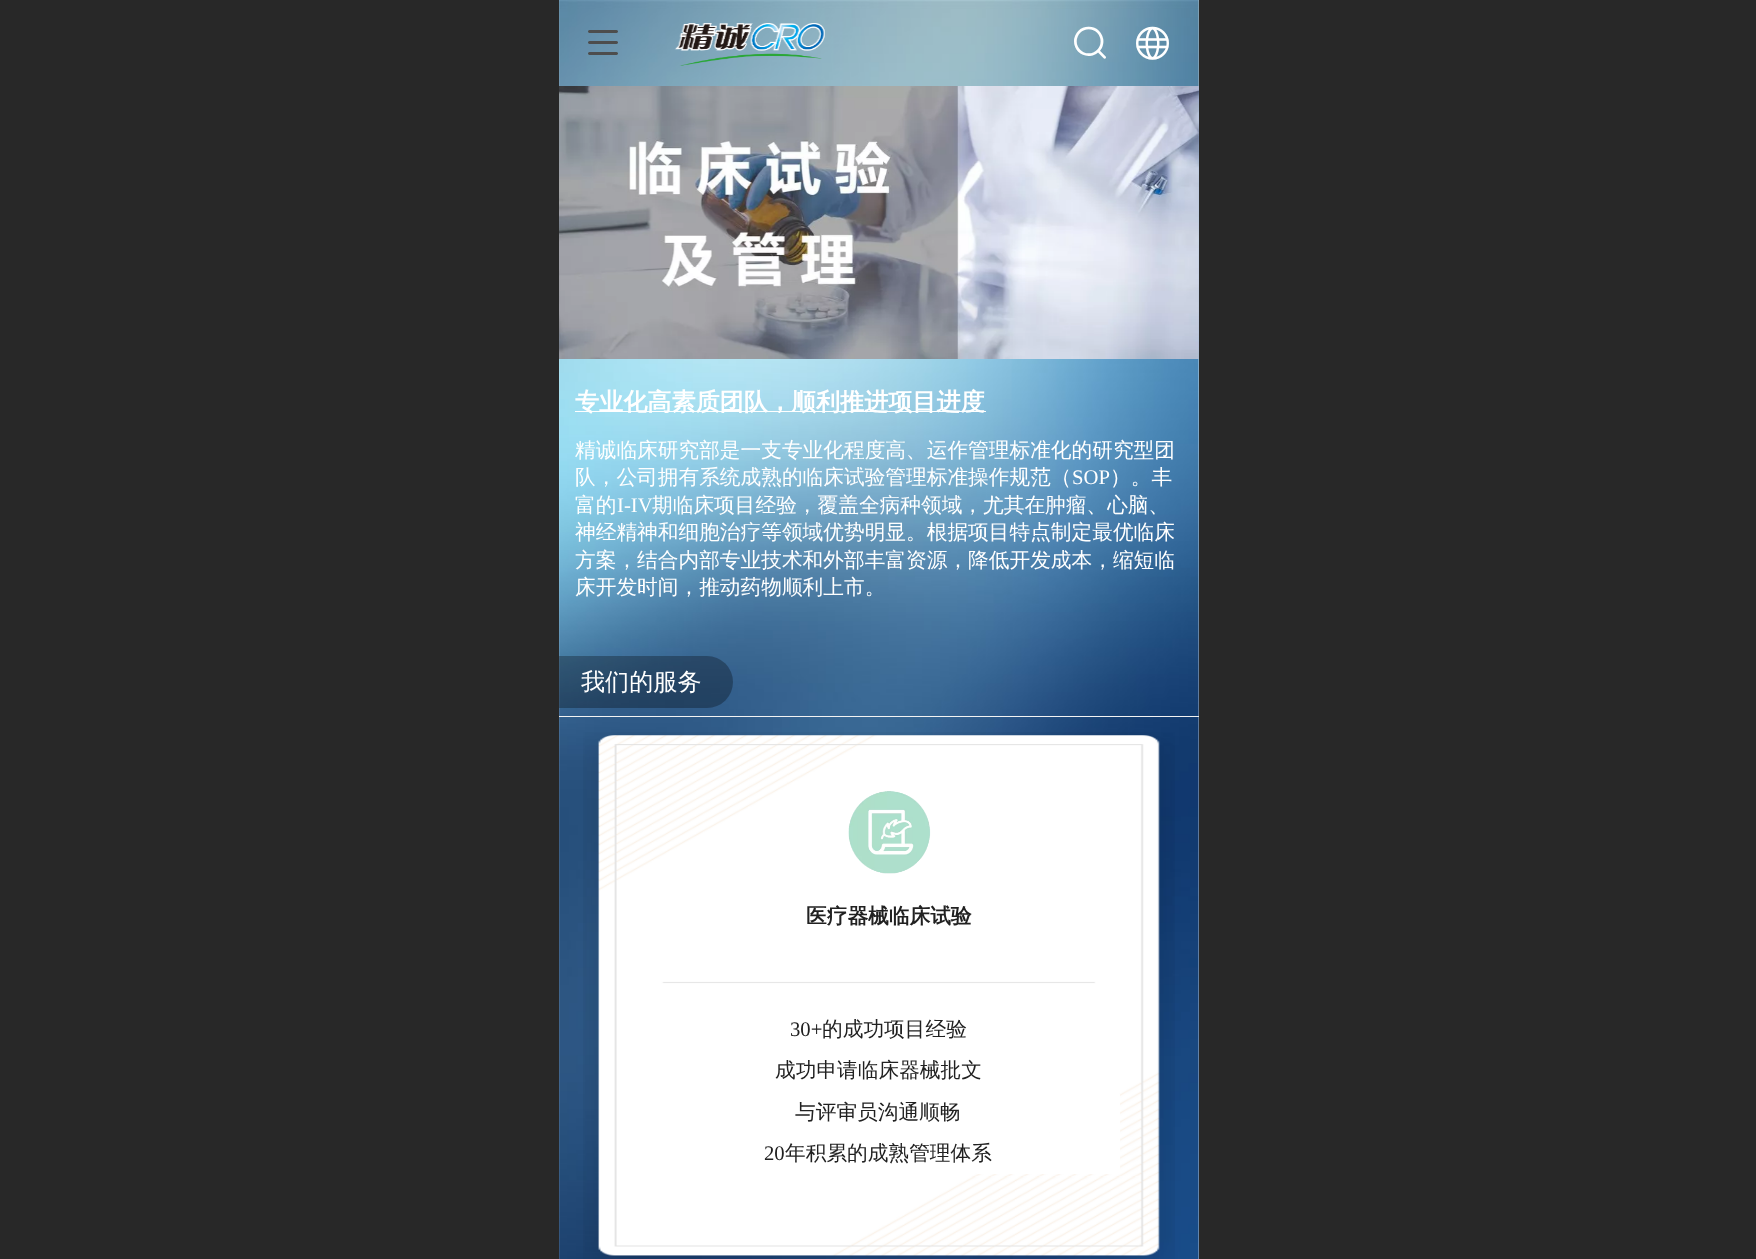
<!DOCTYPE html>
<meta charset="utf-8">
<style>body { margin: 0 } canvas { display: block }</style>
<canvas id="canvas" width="1756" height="1259"></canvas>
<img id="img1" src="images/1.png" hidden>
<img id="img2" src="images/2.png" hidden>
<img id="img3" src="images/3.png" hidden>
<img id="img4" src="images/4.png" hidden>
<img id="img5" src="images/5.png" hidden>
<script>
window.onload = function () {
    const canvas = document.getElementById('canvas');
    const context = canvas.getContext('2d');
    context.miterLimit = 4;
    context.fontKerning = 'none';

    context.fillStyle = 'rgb(255, 255, 255)';
    context.fillRect(0, 0, 1756, 1259);
    context.fillStyle = 'rgb(40, 40, 40)';
    context.fillRect(0, 0, 559, 1259);
    context.drawImage(document.getElementById('img1'), 559, 0, 640, 1259);
    context.fillStyle = 'rgba(4, 4, 4, 0.15)';
    context.fillRect(559, 0, 640, 86);
    context.drawImage(document.getElementById('img2'), 674, 23, 151, 43);
    context.drawImage(document.getElementById('img3'), 559, 86, 640, 273);
    context.fillStyle = 'rgb(255, 255, 255)';
    context.fillRect(575, 411, 411, 1);
    context.fillStyle = 'rgb(243, 243, 243)';
    context.fillRect(559, 716, 640, 1);
    context.fillStyle = 'rgba(0, 0, 0, 0.29)';
    context.beginPath();
    context.roundRect(559, 656, 174, 52, [0, 26, 26, 0]);
    context.fill();
    context.drawImage(document.getElementById('img4'), 583, 732, 592, 527);
    context.drawImage(document.getElementById('img5'), 848, 791, 83, 83);
    context.fillStyle = 'rgb(255, 255, 255)';
    context.fillRect(1050, 1094, 70, 39);
    context.fillRect(977, 1133, 143, 41);
    context.fillStyle = 'rgb(40, 40, 40)';
    context.fillRect(1199, 0, 557, 1259);
    context.font = '30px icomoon';
    context.fillStyle = 'rgb(77, 77, 77)';
    context.fillText('򰌲', 588, 55);
    context.font = '32px icomoon';
    context.fillStyle = 'rgb(255, 255, 255)';
    context.fillText('򰊐', 1074, 56);
    context.font = '33px icomoon';
    context.fillText('򰊉', 1136, 57);
    context.font = 'bold 24.1px WenQuanYi Zen Hei';
    context.fillText('专业化高素质团队，顺利推进项目进度', 575, 410);
    context.font = '500 20.7px WenQuanYi Zen Hei';
    context.fillText('精诚临床研究部是一支专业化程度高、运作管理标准化的研究型团', 575, 457);
    context.fillText('队，公司拥有系统成熟的临床试验管理标准操作规范（', 575, 484);
    context.font = '20.7px Liberation Serif';
    context.fillText('SOP', 1072, 484);
    context.font = '500 20.7px WenQuanYi Zen Hei';
    context.fillText('）。丰', 1110, 484);
    context.fillText('富的', 575, 512);
    context.font = '20.7px Liberation Serif';
    context.fillText('I-IV', 617, 512);
    context.font = '500 20.7px WenQuanYi Zen Hei';
    context.fillText('期临床项目经验，覆盖全病种领域，尤其在肿瘤、心脑、', 652, 512);
    context.fillText('神经精神和细胞治疗等领域优势明显。根据项目特点制定最优临床', 575, 539);
    context.fillText('方案，结合内部专业技术和外部丰富资源，降低开发成本，缩短临', 575, 567);
    context.fillText('床开发时间，推动药物顺利上市。', 575, 594);
    context.font = '500 24.1px WenQuanYi Zen Hei';
    context.fillText('我们的服务', 581, 690);
    context.font = 'bold 20.7px WenQuanYi Zen Hei';
    context.fillStyle = 'rgb(33, 33, 33)';
    context.fillText('医疗器械临床试验', 806, 923);
    context.font = '20.7px Liberation Serif';
    context.fillText('30+', 790, 1036);
    context.font = '500 20.7px WenQuanYi Zen Hei';
    context.fillText('的成功项目经验', 822, 1036);
    context.fillText('成功申请临床器械批文', 775, 1077);
    context.fillText('与评审员沟通顺畅', 795, 1119);
    context.font = '20.7px Liberation Serif';
    context.fillText('20', 764, 1160);
    context.font = '500 20.7px WenQuanYi Zen Hei';
    context.fillText('年积累的成熟管理体系', 785, 1160);
};
</script>
